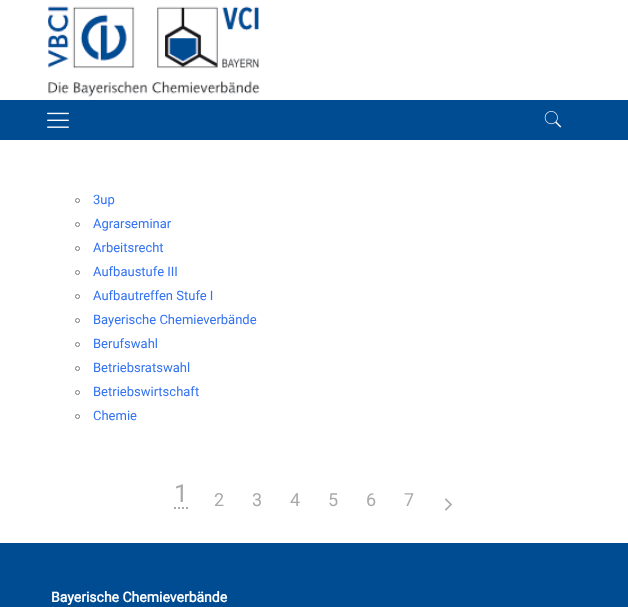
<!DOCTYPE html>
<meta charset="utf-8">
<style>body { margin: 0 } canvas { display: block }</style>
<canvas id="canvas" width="628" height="607"></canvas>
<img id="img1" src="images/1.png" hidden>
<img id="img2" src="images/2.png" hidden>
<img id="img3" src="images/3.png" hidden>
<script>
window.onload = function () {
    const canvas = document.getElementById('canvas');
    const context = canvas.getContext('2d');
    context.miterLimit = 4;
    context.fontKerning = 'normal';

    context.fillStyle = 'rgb(255, 255, 255)';
    context.fillRect(0, 0, 628, 607);
    context.drawImage(document.getElementById('img1'), 48, 6, 212, 91);
    context.fillStyle = 'rgb(0, 76, 147)';
    context.fillRect(0, 100, 628, 40);
    context.drawImage(document.getElementById('img2'), 47, 112, 22, 16);
    context.drawImage(document.getElementById('img3'), 544, 111, 18, 17);
    context.beginPath();
    context.arc(77.5, 200.5, 2, 0, 2 * Math.PI);
    context.strokeStyle = 'rgb(115, 126, 134)';
    context.stroke();
    context.beginPath();
    context.arc(77.5, 224.5, 2, 0, 2 * Math.PI);
    context.stroke();
    context.beginPath();
    context.arc(77.5, 248.5, 2, 0, 2 * Math.PI);
    context.stroke();
    context.beginPath();
    context.arc(77.5, 272.5, 2, 0, 2 * Math.PI);
    context.stroke();
    context.beginPath();
    context.arc(77.5, 296.5, 2, 0, 2 * Math.PI);
    context.stroke();
    context.beginPath();
    context.arc(77.5, 320.5, 2, 0, 2 * Math.PI);
    context.stroke();
    context.beginPath();
    context.arc(77.5, 344.5, 2, 0, 2 * Math.PI);
    context.stroke();
    context.beginPath();
    context.arc(77.5, 368.5, 2, 0, 2 * Math.PI);
    context.stroke();
    context.beginPath();
    context.arc(77.5, 392.5, 2, 0, 2 * Math.PI);
    context.stroke();
    context.beginPath();
    context.arc(77.5, 416.5, 2, 0, 2 * Math.PI);
    context.stroke();
    context.beginPath();
    context.moveTo(174, 508);
    context.lineTo(188, 508);
    context.strokeStyle = 'rgb(170, 170, 170)';
    context.lineWidth = 2;
    context.setLineDash([2, 2]);
    context.stroke();
    context.beginPath();
    context.moveTo(446, 509.5);
    context.lineTo(451, 504.5);
    context.lineTo(446, 499.5);
    context.lineWidth = 1.7;
    context.lineCap = 'square';
    context.setLineDash([]);
    context.stroke();
    context.fillRect(0, 543, 628, 64);
    context.font = '13px Roboto';
    context.fillStyle = 'rgb(51, 114, 240)';
    context.fillText('3up', 93, 204);
    context.fillText('Agrarseminar', 93, 228);
    context.fillText('Arbeitsrecht', 93, 252);
    context.fillText('Aufbaustufe III', 93, 276);
    context.fillText('Aufbautreffen Stufe I', 93, 300);
    context.fillText('Bayerische Chemieverbände', 93, 324);
    context.fillText('Berufswahl', 93, 348);
    context.fillText('Betriebsratswahl', 93, 372);
    context.fillText('Betriebswirtschaft', 93, 396);
    context.fillText('Chemie', 93, 420);
    context.font = '25px Roboto';
    context.fillStyle = 'rgb(170, 170, 170)';
    context.fillText('1', 174, 502);
    context.font = '18px Roboto';
    context.fillText('2', 214, 506);
    context.fillText('3', 252, 506);
    context.fillText('4', 290, 506);
    context.fillText('5', 328, 506);
    context.fillText('6', 366, 506);
    context.fillText('7', 404, 506);
    context.font = 'bold 14px Roboto';
    context.fillStyle = 'rgb(255, 255, 255)';
    context.fillText('Bayerische Chemieverbände', 51, 602);
};
</script>
